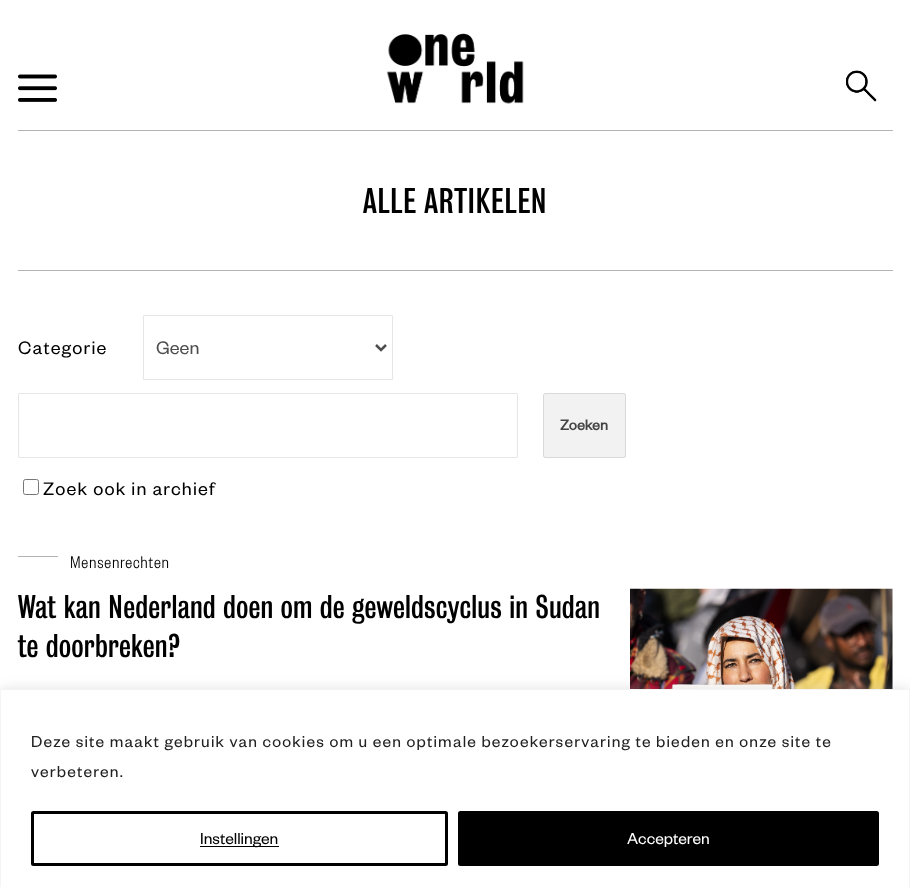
<!DOCTYPE html>
<meta charset="utf-8">
<style>body { margin: 0 } canvas { display: block }</style>
<canvas id="canvas" width="910" height="887"></canvas>
<img id="img1" src="images/1.png" hidden>
<img id="img2" src="images/2.png" hidden>
<img id="img3" src="images/3.png" hidden>
<img id="img4" src="images/4.png" hidden>
<script>
window.onload = function () {
    const canvas = document.getElementById('canvas');
    const context = canvas.getContext('2d');
    context.miterLimit = 4;
    context.fontKerning = 'normal';

    context.fillStyle = 'rgb(255, 255, 255)';
    context.fillRect(0, 0, 910, 887);
    context.drawImage(document.getElementById('img1'), 18, 74, 39, 28);
    context.drawImage(document.getElementById('img2'), 386, 33, 138, 71);
    context.drawImage(document.getElementById('img3'), 846, 70, 31, 32);
    context.fillStyle = 'rgb(179, 179, 179)';
    context.fillRect(18, 130, 875, 1);
    context.fillRect(18, 270, 875, 1);
    context.beginPath();
    context.roundRect(143.5, 315.5, 249, 64, 0.5);
    context.strokeStyle = 'rgb(230, 230, 230)';
    context.stroke();
    context.beginPath();
    context.moveTo(376, 345);
    context.lineTo(381, 350);
    context.lineTo(386, 345);
    context.strokeStyle = 'rgb(78, 78, 78)';
    context.lineWidth = 2.5;
    context.stroke();
    context.beginPath();
    context.roundRect(18.5, 393.5, 499, 64, 0.5);
    context.strokeStyle = 'rgb(230, 230, 230)';
    context.lineWidth = 1;
    context.stroke();
    context.fillStyle = 'rgb(242, 242, 242)';
    context.beginPath();
    context.roundRect(543, 393, 83, 65, 2.5);
    context.fill();
    context.beginPath();
    context.roundRect(543.5, 393.5, 82, 64, 2);
    context.strokeStyle = 'rgba(0, 0, 0, 0.1)';
    context.stroke();
    context.beginPath();
    context.roundRect(23.5, 479.5, 15, 15, 2);
    context.strokeStyle = 'rgb(118, 118, 118)';
    context.stroke();
    context.fillStyle = 'rgb(179, 179, 179)';
    context.fillRect(18, 556, 40, 1);
    context.drawImage(document.getElementById('img4'), 630, 588, 263, 101);
    context.fillStyle = 'rgba(172, 171, 171, 0.3)';
    context.filter = 'blur(6px)';
    context.beginPath();
    context.rect(0, 688, 910, 198);
    context.fill();
    context.filter = 'none';
    context.fillStyle = 'rgb(255, 255, 255)';
    context.beginPath();
    context.rect(0.5, 689.5, 909, 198);
    context.fill();
    context.strokeStyle = 'rgb(244, 244, 244)';
    context.stroke();
    context.beginPath();
    context.roundRect(32.5, 812.5, 414, 52, 1);
    context.strokeStyle = 'rgb(0, 0, 0)';
    context.lineWidth = 3;
    context.stroke();
    context.fillStyle = 'rgb(0, 0, 0)';
    context.fillRect(200, 846, 79, 1);
    context.beginPath();
    context.roundRect(459.5, 812.5, 418, 52, 1);
    context.fill();
    context.stroke();
    context.letterSpacing = '0.6px';
    context.font = '32.5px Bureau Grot';
    context.fillText('ALLE ARTIKELEN', 363, 213);
    context.letterSpacing = '1.2px';
    context.font = '20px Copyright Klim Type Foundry';
    context.fillText('Categorie', 18, 354);
    context.letterSpacing = '0px';
    context.fillStyle = 'rgb(78, 78, 78)';
    context.fillText('Geen', 156, 354);
    context.font = 'bold 16px Copyright Klim Type Foundry';
    context.fillStyle = 'rgb(68, 68, 68)';
    context.fillText('Zoeken', 560, 430);
    context.letterSpacing = '1.2px';
    context.font = '20px Copyright Klim Type Foundry';
    context.fillStyle = 'rgb(0, 0, 0)';
    context.fillText('Zoek ook in archief', 43, 495);
    context.letterSpacing = '0.75px';
    context.font = '300 18.75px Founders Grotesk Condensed';
    context.fillText('Mensenrechten', 70, 568);
    context.letterSpacing = '0.6px';
    context.font = '30px Bureau Grot';
    context.fillText('Wat kan Nederland doen om de geweldscyclus in Sudan', 18, 618);
    context.fillText('te doorbreken?', 18, 657);
    context.letterSpacing = '1.2px';
    context.font = '17.5px Copyright Klim Type Foundry';
    context.fillStyle = 'rgb(33, 33, 33)';
    context.fillText('Deze site maakt gebruik van cookies om u een optimale bezoekerservaring te bieden en onze site te', 31, 747);
    context.fillText('verbeteren.', 31, 777);
    context.letterSpacing = '0px';
    context.fillStyle = 'rgb(0, 0, 0)';
    context.fillText('Instellingen', 200, 844);
    context.fillStyle = 'rgb(255, 255, 255)';
    context.fillText('Accepteren', 627, 844);
};
</script>
